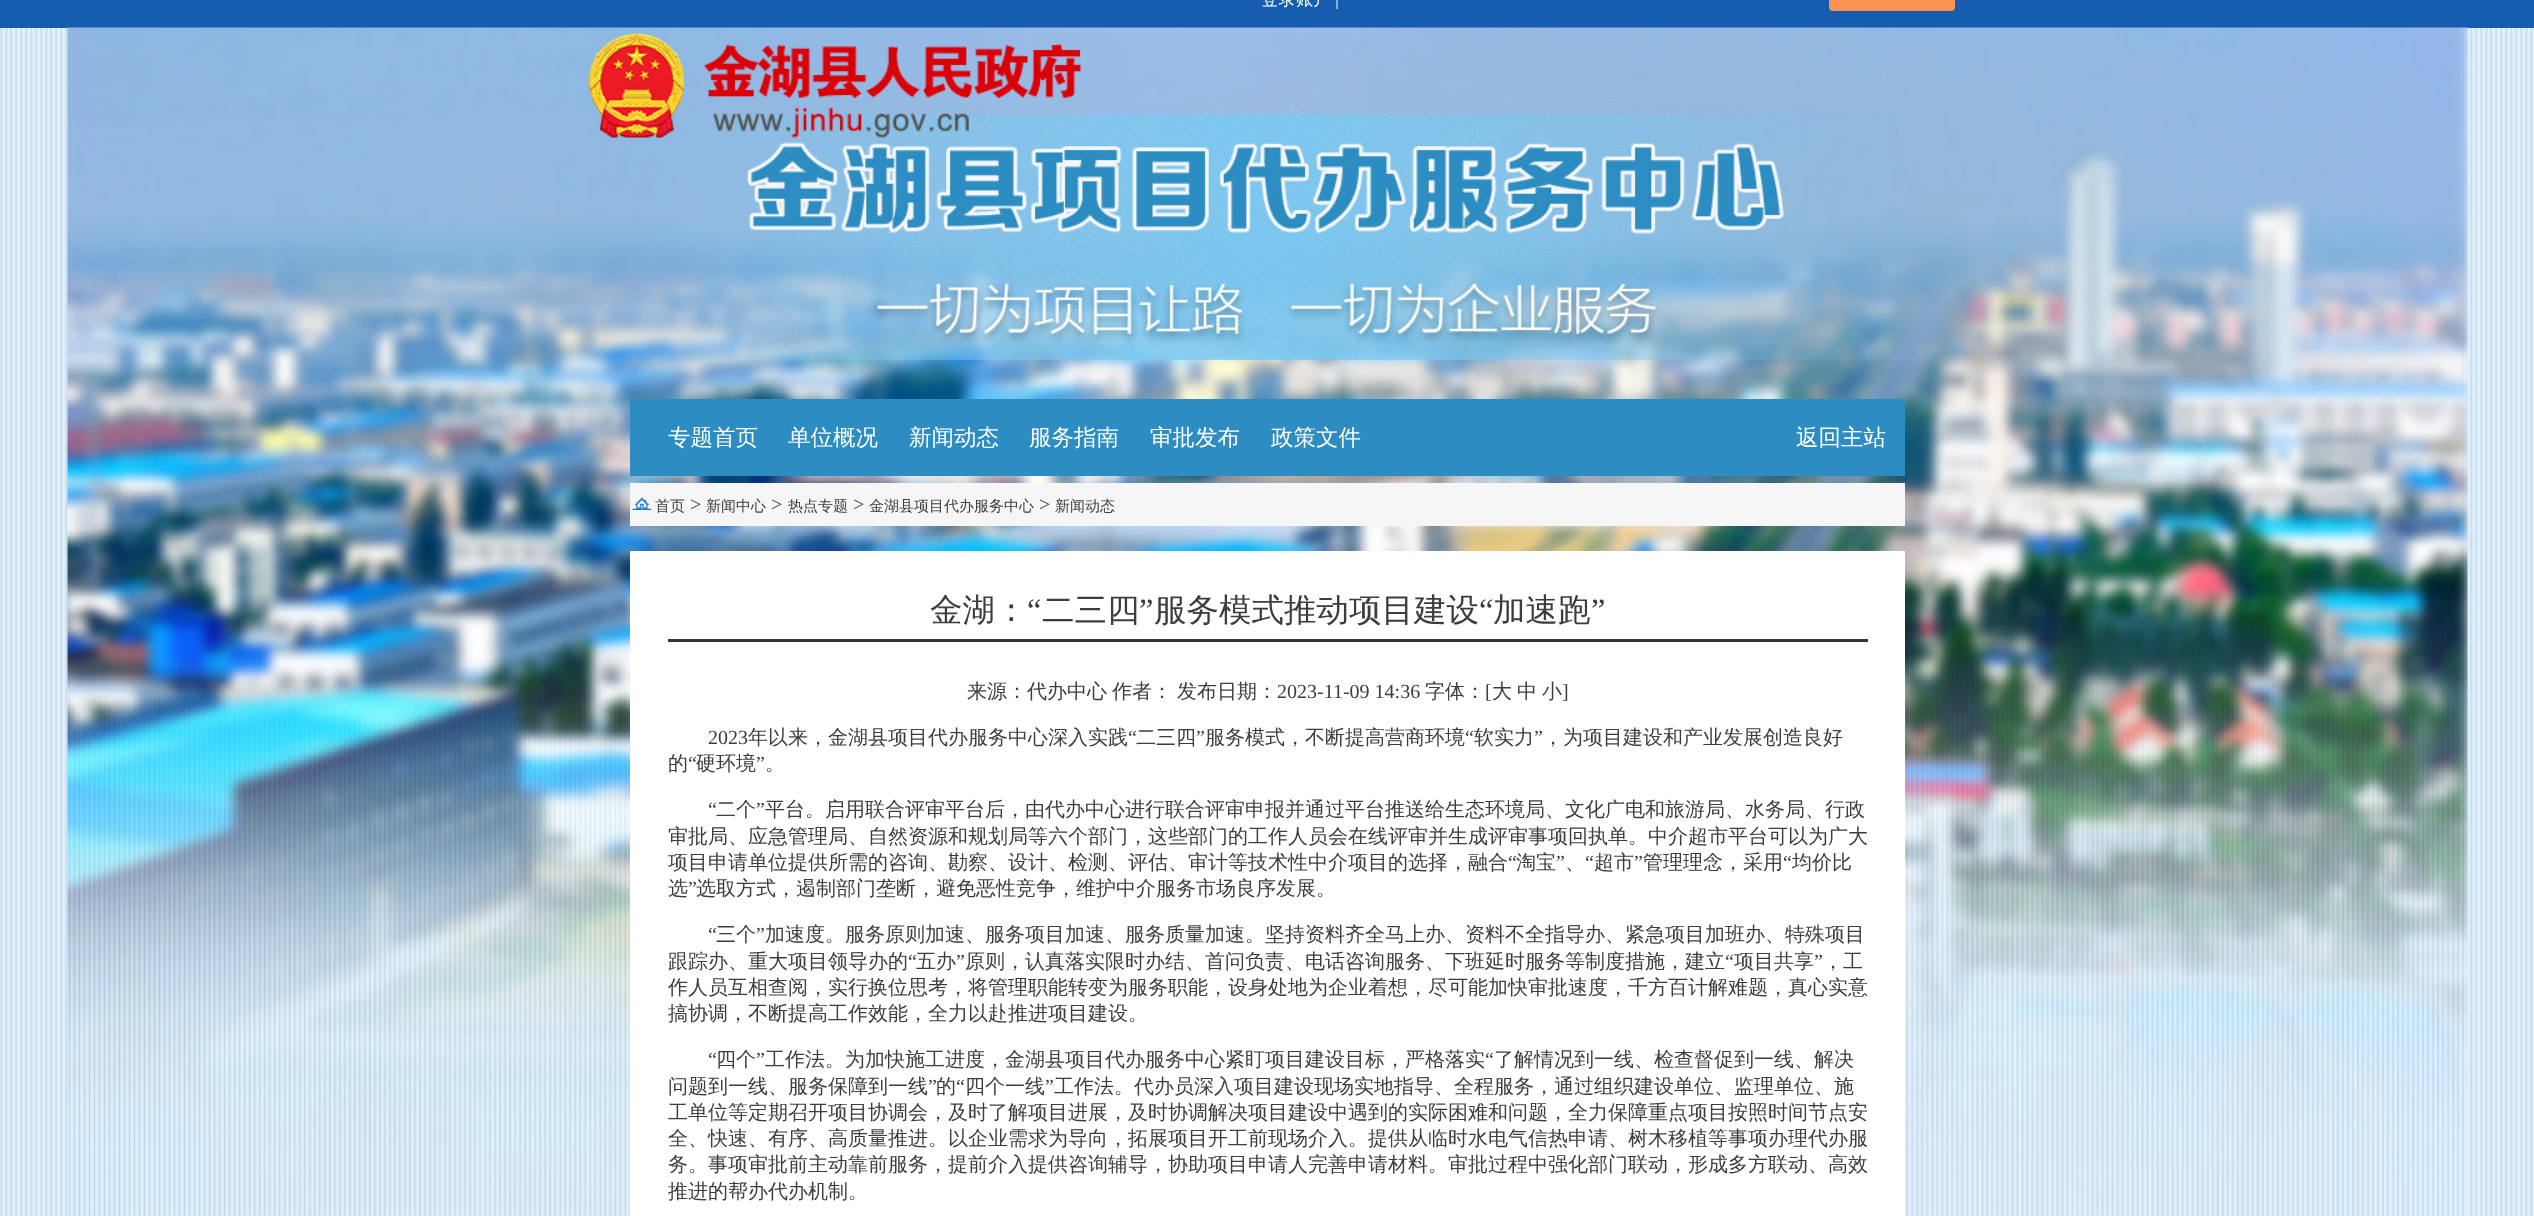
<!DOCTYPE html>
<meta charset="utf-8">
<style>body { margin: 0 } canvas { display: block }</style>
<canvas id="canvas" width="2534" height="1216"></canvas>
<img id="img1" src="images/1.png" hidden>
<img id="img2" src="images/2.png" hidden>
<img id="img3" src="images/3.png" hidden>
<img id="img4" src="images/4.png" hidden>
<script>
window.onload = function () {
    const canvas = document.getElementById('canvas');
    const context = canvas.getContext('2d');
    context.miterLimit = 4;
    context.fontKerning = 'normal';

    context.fillStyle = 'rgb(255, 255, 255)';
    context.fillRect(0, 0, 2534, 1216);
    context.drawImage(document.getElementById('img1'), 0, 28, 2534, 1188);
    context.fillStyle = 'rgb(22, 93, 175)';
    context.fillRect(0, 0, 2534, 28);
    context.drawImage(document.getElementById('img2'), 1262, 0, 76, 9);
    context.fillStyle = 'rgb(253, 146, 83)';
    context.beginPath();
    context.roundRect(1829, -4, 126, 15, 4);
    context.fill();
    context.drawImage(document.getElementById('img3'), 67, 27, 2401, 1189);
    context.fillStyle = 'rgb(45, 141, 194)';
    context.fillRect(630, 399, 1275, 77);
    context.fillStyle = 'rgb(246, 246, 246)';
    context.fillRect(630, 483, 1275, 43);
    context.drawImage(document.getElementById('img4'), 632, 497, 20, 13);
    context.fillStyle = 'rgb(255, 255, 255)';
    context.fillRect(630, 551, 1275, 665);
    context.fillStyle = 'rgb(52, 52, 52)';
    context.fillRect(668, 639, 1200, 3);
    context.font = '500 22.5px WenQuanYi Zen Hei';
    context.fillStyle = 'rgb(255, 255, 255)';
    context.fillText('专题首页', 668, 445);
    context.fillText('单位概况', 788, 445);
    context.fillText('新闻动态', 909, 445);
    context.fillText('服务指南', 1029, 445);
    context.fillText('审批发布', 1150, 445);
    context.fillText('政策文件', 1271, 445);
    context.fillText('返回主站', 1796, 445);
    context.font = '500 15px WenQuanYi Zen Hei';
    context.fillStyle = 'rgb(61, 61, 61)';
    context.fillText('首页', 655, 511);
    context.font = '20px Liberation Serif';
    context.fillText('>', 690, 511);
    context.font = '500 15px WenQuanYi Zen Hei';
    context.fillText('新闻中心', 706, 511);
    context.font = '20px Liberation Serif';
    context.fillText('>', 771, 511);
    context.font = '500 15px WenQuanYi Zen Hei';
    context.fillText('热点专题', 788, 511);
    context.font = '20px Liberation Serif';
    context.fillText('>', 853, 511);
    context.font = '500 15px WenQuanYi Zen Hei';
    context.fillText('金湖县项目代办服务中心', 869, 511);
    context.font = '20px Liberation Serif';
    context.fillText('>', 1039, 511);
    context.font = '500 15px WenQuanYi Zen Hei';
    context.fillText('新闻动态', 1055, 511);
    context.font = '500 32.5px WenQuanYi Zen Hei';
    context.fillText('金湖：', 930, 621);
    context.font = '32.5px Liberation Serif';
    context.fillText('“', 1027, 621);
    context.font = '500 32.5px WenQuanYi Zen Hei';
    context.fillText('二三四', 1042, 621);
    context.font = '32.5px Liberation Serif';
    context.fillText('”', 1139, 621);
    context.font = '500 32.5px WenQuanYi Zen Hei';
    context.fillText('服务模式推动项目建设', 1154, 621);
    context.font = '32.5px Liberation Serif';
    context.fillText('“', 1479, 621);
    context.font = '500 32.5px WenQuanYi Zen Hei';
    context.fillText('加速跑', 1493, 621);
    context.font = '32.5px Liberation Serif';
    context.fillText('”', 1591, 621);
    context.font = '500 20px WenQuanYi Zen Hei';
    context.fillText('来源：代办中心', 967, 698);
    context.fillText('作者：', 1112, 698);
    context.fillText('发布日期：', 1177, 698);
    context.font = '20px Liberation Serif';
    context.fillText('2023-11-09 14:36', 1277, 698);
    context.font = '500 20px WenQuanYi Zen Hei';
    context.fillText('字体：', 1425, 698);
    context.font = '20px Liberation Serif';
    context.fillText('[', 1485, 698);
    context.font = '500 20px WenQuanYi Zen Hei';
    context.fillText('大', 1492, 698);
    context.fillText('中', 1517, 698);
    context.fillText('小', 1542, 698);
    context.font = '20px Liberation Serif';
    context.fillText(']', 1562, 698);
    context.fillText('2023', 708, 744);
    context.font = '500 20px WenQuanYi Zen Hei';
    context.fillText('年以来，金湖县项目代办服务中心深入实践', 748, 744);
    context.font = '20px Liberation Serif';
    context.fillText('“', 1128, 744);
    context.font = '500 20px WenQuanYi Zen Hei';
    context.fillText('二三四', 1136, 744);
    context.font = '20px Liberation Serif';
    context.fillText('”', 1196, 744);
    context.font = '500 20px WenQuanYi Zen Hei';
    context.fillText('服务模式，不断提高营商环境', 1205, 744);
    context.font = '20px Liberation Serif';
    context.fillText('“', 1465, 744);
    context.font = '500 20px WenQuanYi Zen Hei';
    context.fillText('软实力', 1474, 744);
    context.font = '20px Liberation Serif';
    context.fillText('”', 1534, 744);
    context.font = '500 20px WenQuanYi Zen Hei';
    context.fillText('，为项目建设和产业发展创造良好', 1543, 744);
    context.fillText('的', 668, 770);
    context.font = '20px Liberation Serif';
    context.fillText('“', 688, 770);
    context.font = '500 20px WenQuanYi Zen Hei';
    context.fillText('硬环境', 696, 770);
    context.font = '20px Liberation Serif';
    context.fillText('”', 756, 770);
    context.font = '500 20px WenQuanYi Zen Hei';
    context.fillText('。', 765, 770);
    context.font = '20px Liberation Serif';
    context.fillText('“', 708, 816);
    context.font = '500 20px WenQuanYi Zen Hei';
    context.fillText('二个', 716, 816);
    context.font = '20px Liberation Serif';
    context.fillText('”', 756, 816);
    context.font = '500 20px WenQuanYi Zen Hei';
    context.fillText('平台。启用联合评审平台后，由代办中心进行联合评审申报并通过平台推送给生态环境局、文化广电和旅游局、水务局、行政', 765, 816);
    context.fillText('审批局、应急管理局、自然资源和规划局等六个部门，这些部门的工作人员会在线评审并生成评审事项回执单。中介超市平台可以为广大', 668, 843);
    context.fillText('项目申请单位提供所需的咨询、勘察、设计、检测、评估、审计等技术性中介项目的选择，融合', 668, 869);
    context.font = '20px Liberation Serif';
    context.fillText('“', 1508, 869);
    context.font = '500 20px WenQuanYi Zen Hei';
    context.fillText('淘宝', 1516, 869);
    context.font = '20px Liberation Serif';
    context.fillText('”', 1556, 869);
    context.fillText('“', 1585, 869);
    context.font = '500 20px WenQuanYi Zen Hei';
    context.fillText('超市', 1594, 869);
    context.font = '20px Liberation Serif';
    context.fillText('”', 1634, 869);
    context.font = '500 20px WenQuanYi Zen Hei';
    context.fillText('管理理念，采用', 1643, 869);
    context.font = '20px Liberation Serif';
    context.fillText('“', 1783, 869);
    context.font = '500 20px WenQuanYi Zen Hei';
    context.fillText('均价比', 1792, 869);
    context.fillText('、', 1565, 869);
    context.fillText('选', 668, 895);
    context.font = '20px Liberation Serif';
    context.fillText('”', 688, 895);
    context.font = '500 20px WenQuanYi Zen Hei';
    context.fillText('选取方式，遏制部门垄断，避免恶性竞争，维护中介服务市场良序发展。', 696, 895);
    context.font = '20px Liberation Serif';
    context.fillText('“', 708, 941);
    context.font = '500 20px WenQuanYi Zen Hei';
    context.fillText('三个', 716, 941);
    context.font = '20px Liberation Serif';
    context.fillText('”', 756, 941);
    context.font = '500 20px WenQuanYi Zen Hei';
    context.fillText('加速度。服务原则加速、服务项目加速、服务质量加速。坚持资料齐全马上办、资料不全指导办、紧急项目加班办、特殊项目', 765, 941);
    context.fillText('跟踪办、重大项目领导办的', 668, 968);
    context.font = '20px Liberation Serif';
    context.fillText('“', 908, 968);
    context.font = '500 20px WenQuanYi Zen Hei';
    context.fillText('五办', 916, 968);
    context.font = '20px Liberation Serif';
    context.fillText('”', 956, 968);
    context.font = '500 20px WenQuanYi Zen Hei';
    context.fillText('原则，认真落实限时办结、首问负责、电话咨询服务、下班延时服务等制度措施，建立', 965, 968);
    context.font = '20px Liberation Serif';
    context.fillText('“', 1725, 968);
    context.font = '500 20px WenQuanYi Zen Hei';
    context.fillText('项目共享', 1734, 968);
    context.font = '20px Liberation Serif';
    context.fillText('”', 1814, 968);
    context.font = '500 20px WenQuanYi Zen Hei';
    context.fillText('，工', 1823, 968);
    context.fillText('作人员互相查阅，实行换位思考，将管理职能转变为服务职能，设身处地为企业着想，尽可能加快审批速度，千方百计解难题，真心实意', 668, 994);
    context.fillText('搞协调，不断提高工作效能，全力以赴推进项目建设。', 668, 1020);
    context.font = '20px Liberation Serif';
    context.fillText('“', 708, 1066);
    context.font = '500 20px WenQuanYi Zen Hei';
    context.fillText('四个', 716, 1066);
    context.font = '20px Liberation Serif';
    context.fillText('”', 756, 1066);
    context.font = '500 20px WenQuanYi Zen Hei';
    context.fillText('工作法。为加快施工进度，金湖县项目代办服务中心紧盯项目建设目标，严格落实', 765, 1066);
    context.font = '20px Liberation Serif';
    context.fillText('“', 1485, 1066);
    context.font = '500 20px WenQuanYi Zen Hei';
    context.fillText('了解情况到一线、检查督促到一线、解决', 1494, 1066);
    context.fillText('问题到一线、服务保障到一线', 668, 1093);
    context.font = '20px Liberation Serif';
    context.fillText('”', 928, 1093);
    context.font = '500 20px WenQuanYi Zen Hei';
    context.fillText('的', 936, 1093);
    context.font = '20px Liberation Serif';
    context.fillText('“', 956, 1093);
    context.font = '500 20px WenQuanYi Zen Hei';
    context.fillText('四个一线', 965, 1093);
    context.font = '20px Liberation Serif';
    context.fillText('”', 1045, 1093);
    context.font = '500 20px WenQuanYi Zen Hei';
    context.fillText('工作法。代办员深入项目建设现场实地指导、全程服务，通过组织建设单位、监理单位、施', 1054, 1093);
    context.fillText('工单位等定期召开项目协调会，及时了解项目进展，及时协调解决项目建设中遇到的实际困难和问题，全力保障重点项目按照时间节点安', 668, 1119);
    context.fillText('全、快速、有序、高质量推进。以企业需求为导向，拓展项目开工前现场介入。提供从临时水电气信热申请、树木移植等事项办理代办服', 668, 1145);
    context.fillText('务。事项审批前主动靠前服务，提前介入提供咨询辅导，协助项目申请人完善申请材料。审批过程中强化部门联动，形成多方联动、高效', 668, 1171);
    context.fillText('推进的帮办代办机制。', 668, 1198);
};
</script>
